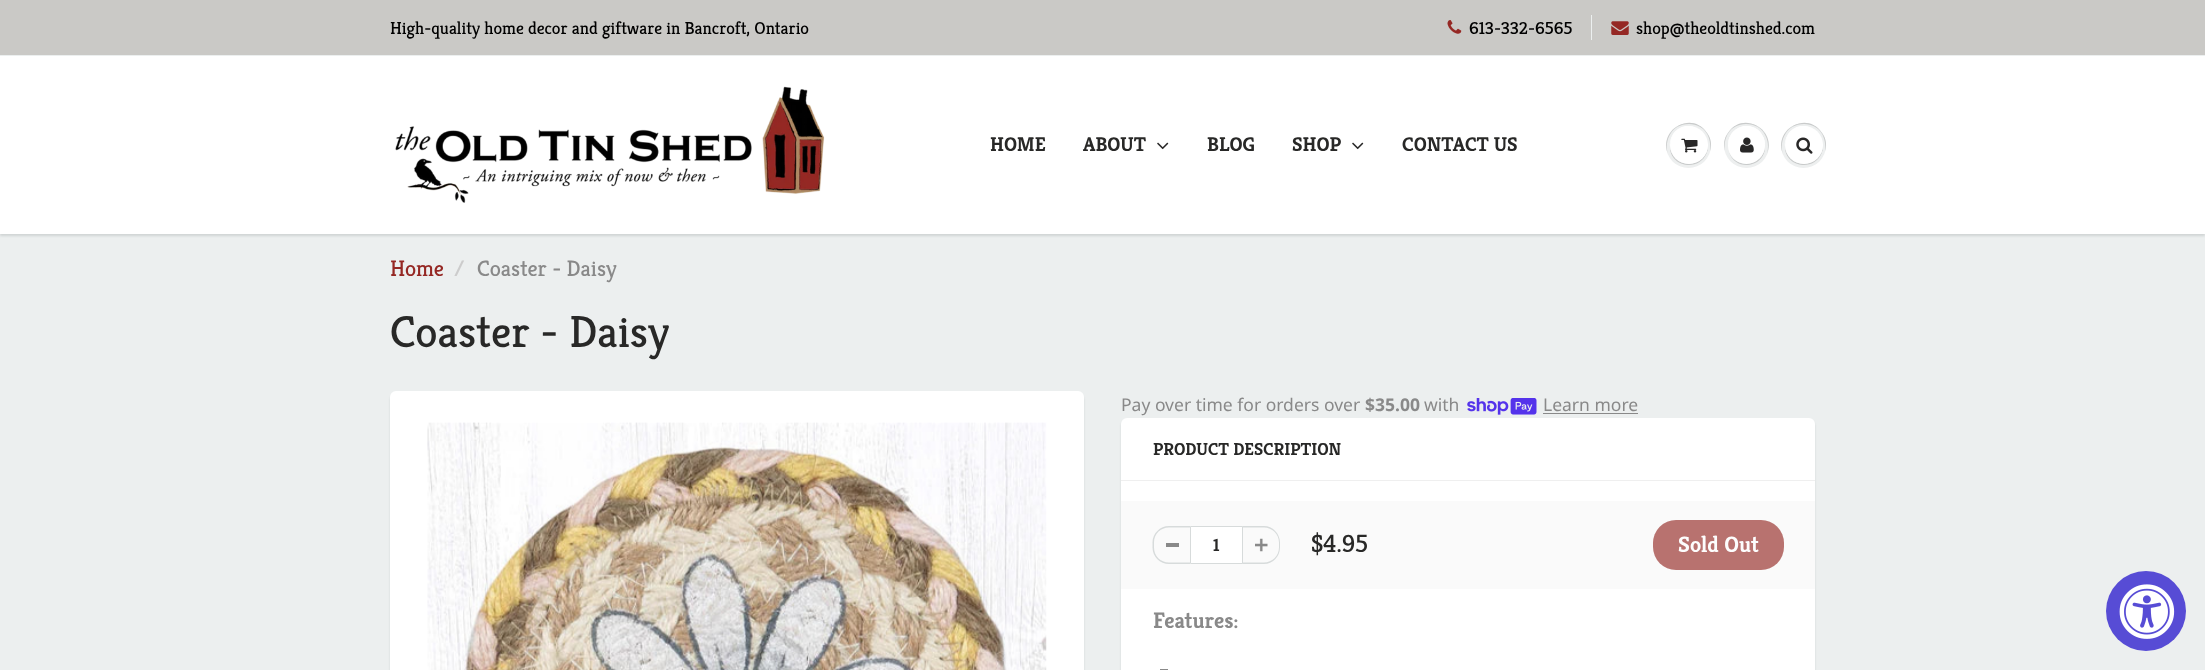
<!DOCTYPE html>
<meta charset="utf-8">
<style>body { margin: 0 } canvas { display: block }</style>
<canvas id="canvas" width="2205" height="670"></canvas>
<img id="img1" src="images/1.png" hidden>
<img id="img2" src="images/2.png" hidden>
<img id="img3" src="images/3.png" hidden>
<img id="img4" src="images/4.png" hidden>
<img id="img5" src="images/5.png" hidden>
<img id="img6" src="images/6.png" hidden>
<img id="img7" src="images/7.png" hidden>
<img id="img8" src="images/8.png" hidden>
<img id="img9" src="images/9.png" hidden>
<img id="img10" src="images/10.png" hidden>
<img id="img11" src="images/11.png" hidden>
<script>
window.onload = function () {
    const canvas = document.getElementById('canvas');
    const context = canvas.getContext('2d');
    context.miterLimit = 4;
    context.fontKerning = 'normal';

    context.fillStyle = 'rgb(202, 201, 198)';
    context.fillRect(0, 0, 2205, 670);
    context.drawImage(document.getElementById('img1'), 1447, 20, 15, 14);
    context.fillStyle = 'rgb(236, 239, 239)';
    context.fillRect(1591, 15, 1, 25);
    context.drawImage(document.getElementById('img2'), 1611, 21, 18, 14);
    context.fillRect(0, 234, 2205, 436);
    context.fillStyle = 'rgba(11, 25, 28, 0.12)';
    context.filter = 'blur(1px)';
    context.beginPath();
    context.rect(0, 58, 2205, 178);
    context.fill();
    context.filter = 'none';
    context.fillStyle = 'rgb(255, 255, 255)';
    context.fillRect(0, 56, 2205, 178);
    context.fillStyle = 'rgb(236, 239, 239)';
    context.fillRect(0, 55, 2205, 1);
    context.drawImage(document.getElementById('img3'), 395, 86, 430, 117);
    context.drawImage(document.getElementById('img4'), 1157, 142, 12, 8);
    context.drawImage(document.getElementById('img4'), 1352, 142, 12, 8);
    context.fillStyle = 'rgb(237, 239, 239)';
    context.beginPath();
    context.arc(1688.5, 145.5, 22.5, 0, 2 * Math.PI);
    context.fill();
    context.fillStyle = 'rgb(201, 203, 203)';
    context.beginPath();
    context.moveTo(1689, 124);
    context.bezierCurveTo(1705, 124, 1712, 138, 1710, 151);
    context.bezierCurveTo(1712, 145, 1711, 138, 1707, 133);
    context.bezierCurveTo(1692, 110, 1658, 130, 1668, 154);
    context.bezierCurveTo(1664, 141, 1671, 124, 1689, 124);
    context.closePath();
    context.fill();
    context.beginPath();
    context.moveTo(1670, 146);
    context.bezierCurveTo(1669, 166.5, 1698.5, 172.5, 1706.5, 153.5);
    context.bezierCurveTo(1708.5, 149.5, 1708.5, 144.5, 1707, 140);
    context.bezierCurveTo(1712, 158, 1689.5, 172, 1675.5, 158.5);
    context.bezierCurveTo(1672.5, 155, 1670, 150.5, 1670, 146);
    context.closePath();
    context.fill();
    context.fillStyle = 'rgb(255, 255, 255)';
    context.beginPath();
    context.arc(1689, 145, 19, 0, 2 * Math.PI);
    context.fill();
    context.beginPath();
    context.moveTo(1689, 128);
    context.bezierCurveTo(1705, 128, 1710, 144, 1705, 155);
    context.bezierCurveTo(1717, 135, 1687, 114, 1673, 134);
    context.bezierCurveTo(1670, 139, 1669, 144, 1670, 149);
    context.bezierCurveTo(1669, 139, 1675, 128, 1689, 128);
    context.closePath();
    context.fill();
    context.drawImage(document.getElementById('img5'), 1681, 138, 17, 15);
    context.fillStyle = 'rgb(237, 239, 239)';
    context.beginPath();
    context.arc(1746.5, 145.5, 22.5, 0, 2 * Math.PI);
    context.fill();
    context.fillStyle = 'rgb(201, 203, 203)';
    context.beginPath();
    context.moveTo(1746, 124);
    context.bezierCurveTo(1764, 124, 1771, 141, 1767, 154);
    context.bezierCurveTo(1777, 130, 1743, 110, 1728, 133);
    context.bezierCurveTo(1724, 138, 1723, 145, 1725, 151);
    context.bezierCurveTo(1723, 138, 1730, 124, 1746, 124);
    context.closePath();
    context.fill();
    context.beginPath();
    context.moveTo(1729, 152);
    context.bezierCurveTo(1735, 172.5, 1766, 167.5, 1765, 146);
    context.bezierCurveTo(1764, 166, 1736, 170.5, 1729, 152);
    context.closePath();
    context.fill();
    context.fillStyle = 'rgb(255, 255, 255)';
    context.beginPath();
    context.roundRect(1728, 126, 37, 38, 18.5);
    context.fill();
    context.beginPath();
    context.moveTo(1746, 128);
    context.bezierCurveTo(1760, 128, 1766, 139.5, 1764.5, 150);
    context.bezierCurveTo(1765.5, 146, 1765, 141, 1763.5, 137.5);
    context.bezierCurveTo(1755.5, 118.5, 1727.5, 124.5, 1728, 146);
    context.bezierCurveTo(1728, 137, 1734, 128, 1746, 128);
    context.closePath();
    context.fill();
    context.drawImage(document.getElementById('img6'), 1740, 137, 14, 16);
    context.fillStyle = 'rgb(237, 239, 239)';
    context.beginPath();
    context.arc(1803.5, 145.5, 22.5, 0, 2 * Math.PI);
    context.fill();
    context.fillStyle = 'rgb(201, 203, 203)';
    context.beginPath();
    context.moveTo(1804, 124);
    context.bezierCurveTo(1820, 124, 1827, 138, 1825, 151);
    context.bezierCurveTo(1827, 145, 1826, 138, 1822, 133);
    context.bezierCurveTo(1807, 110, 1773, 130, 1783, 154);
    context.bezierCurveTo(1779, 141, 1786, 124, 1804, 124);
    context.closePath();
    context.fill();
    context.beginPath();
    context.moveTo(1785, 146);
    context.bezierCurveTo(1784, 166.5, 1813.5, 172.5, 1821.5, 153.5);
    context.bezierCurveTo(1823.5, 149.5, 1823.5, 144.5, 1822, 140);
    context.bezierCurveTo(1827, 158, 1804.5, 172, 1790.5, 158.5);
    context.bezierCurveTo(1787.5, 155, 1785, 150.5, 1785, 146);
    context.closePath();
    context.fill();
    context.fillStyle = 'rgb(255, 255, 255)';
    context.beginPath();
    context.arc(1804, 145, 19, 0, 2 * Math.PI);
    context.fill();
    context.beginPath();
    context.moveTo(1804, 128);
    context.bezierCurveTo(1820, 128, 1825, 144, 1820, 155);
    context.bezierCurveTo(1832, 135, 1802, 114, 1788, 134);
    context.bezierCurveTo(1785, 139, 1784, 144, 1785, 149);
    context.bezierCurveTo(1784, 139, 1790, 128, 1804, 128);
    context.closePath();
    context.fill();
    context.drawImage(document.getElementById('img7'), 1796, 137, 17, 17);
    context.fillStyle = 'rgba(11, 25, 28, 0.1)';
    context.filter = 'blur(1px)';
    context.beginPath();
    context.roundRect(390, 394, 694, 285, 6);
    context.fill();
    context.filter = 'none';
    context.fillStyle = 'rgb(255, 255, 255)';
    context.beginPath();
    context.roundRect(390, 391, 694, 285, 6);
    context.fill();
    context.drawImage(document.getElementById('img8'), 427, 422, 620, 248);
    context.drawImage(document.getElementById('img9'), 1467, 398, 70, 17);
    context.fillStyle = 'rgb(137, 137, 137)';
    context.fillRect(1543, 413, 95, 1);
    context.fillStyle = 'rgba(11, 25, 28, 0.1)';
    context.filter = 'blur(1px)';
    context.beginPath();
    context.roundRect(1121, 420, 694, 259, 6);
    context.fill();
    context.filter = 'none';
    context.fillStyle = 'rgb(255, 255, 255)';
    context.beginPath();
    context.roundRect(1121, 418, 694, 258, 6);
    context.fill();
    context.fillStyle = 'rgb(239, 239, 239)';
    context.fillRect(1121, 480, 694, 1);
    context.fillStyle = 'rgb(250, 250, 250)';
    context.fillRect(1121, 501, 694, 88);
    context.fillStyle = 'rgb(137, 137, 137)';
    context.fillRect(1166, 543, 13, 4);
    context.fillStyle = 'rgb(215, 219, 219)';
    context.beginPath();
    context.moveTo(1169, 526);
    context.lineTo(1190, 526);
    context.lineTo(1190, 564);
    context.lineTo(1169, 564);
    context.bezierCurveTo(1160, 564, 1152.5, 556.5, 1152.5, 547.5);
    context.lineTo(1152.5, 542.5);
    context.bezierCurveTo(1152.5, 533.5, 1160, 526, 1169, 526);
    context.closePath();
    context.moveTo(1169, 527.5);
    context.lineTo(1190, 527.5);
    context.lineTo(1190, 562.5);
    context.lineTo(1169, 562.5);
    context.bezierCurveTo(1160.5, 562.5, 1154, 556, 1154, 547.5);
    context.lineTo(1154, 542.5);
    context.bezierCurveTo(1154, 534, 1160.5, 527.5, 1169, 527.5);
    context.closePath();
    context.fill('evenodd');
    context.fillStyle = 'rgb(255, 255, 255)';
    context.beginPath();
    context.rect(1190.5, 526.5, 52, 37);
    context.fill();
    context.strokeStyle = 'rgb(215, 219, 219)';
    context.stroke();
    context.drawImage(document.getElementById('img10'), 1255, 538, 13, 14);
    context.fillStyle = 'rgb(215, 219, 219)';
    context.beginPath();
    context.moveTo(1242.5, 526);
    context.lineTo(1264, 526);
    context.bezierCurveTo(1272.5, 526, 1280, 533.5, 1280, 542.5);
    context.lineTo(1280, 547.5);
    context.bezierCurveTo(1280, 556.5, 1272.5, 564, 1264, 564);
    context.lineTo(1242.5, 564);
    context.closePath();
    context.moveTo(1242.5, 527.5);
    context.lineTo(1264, 527.5);
    context.bezierCurveTo(1272, 527.5, 1279, 534, 1279, 542.5);
    context.lineTo(1279, 547.5);
    context.bezierCurveTo(1279, 556, 1272, 562.5, 1264, 562.5);
    context.lineTo(1242.5, 562.5);
    context.closePath();
    context.fill('evenodd');
    context.fillStyle = 'rgb(184, 114, 111)';
    context.beginPath();
    context.roundRect(1653, 520, 131, 50, 23);
    context.fill();
    context.fillStyle = 'rgb(137, 137, 137)';
    context.fillRect(1160, 669, 8, 1);
    context.fillStyle = 'rgb(87, 76, 213)';
    context.beginPath();
    context.arc(2146, 611, 40, 0, 2 * Math.PI);
    context.fill();
    context.drawImage(document.getElementById('img11'), 2119, 584, 56, 55);
    context.font = '17.5px Kreon';
    context.fillStyle = 'rgb(0, 0, 0)';
    context.fillText('High-quality home decor and giftware in Bancroft, Ontario', 390, 34);
    context.fillText('613-332-6565', 1469, 34);
    context.fillText('shop@theoldtinshed.com', 1636, 34);
    context.font = 'bold 20px Kreon';
    context.fillStyle = 'rgb(40, 40, 39)';
    context.fillText('HOME', 990, 151);
    context.fillText('ABOUT', 1083, 151);
    context.fillText('BLOG', 1207, 151);
    context.fillText('SHOP', 1292, 151);
    context.fillText('CONTACT US', 1402, 151);
    context.font = '22.5px Kreon';
    context.fillStyle = 'rgb(149, 40, 36)';
    context.fillText('Home', 390, 276);
    context.fillStyle = 'rgb(204, 204, 204)';
    context.fillText('/', 454, 276);
    context.fillStyle = 'rgb(137, 137, 137)';
    context.fillText('Coaster - Daisy', 477, 276);
    context.font = '45px Kreon';
    context.fillStyle = 'rgb(40, 40, 39)';
    context.fillText('Coaster - Daisy', 390, 347);
    context.font = '17.5px Noto Sans';
    context.fillStyle = 'rgb(137, 137, 137)';
    context.fillText('Pay over time for orders over', 1121, 411);
    context.font = 'bold 17.5px Noto Sans';
    context.fillText('$35.00', 1365, 411);
    context.font = '17.5px Noto Sans';
    context.fillText('with', 1424, 411);
    context.fillText('Learn more', 1543, 411);
    context.font = 'bold 17.5px Kreon';
    context.fillStyle = 'rgb(40, 40, 39)';
    context.fillText('PRODUCT DESCRIPTION', 1153, 455);
    context.fillText('1', 1213, 551);
    context.font = '25px Kreon';
    context.fillText('$4.95', 1311, 552);
    context.font = 'bold 22.5px Kreon';
    context.fillStyle = 'rgb(253, 253, 253)';
    context.fillText('Sold Out', 1678, 552);
    context.fillStyle = 'rgb(137, 137, 137)';
    context.fillText('Features:', 1153, 628);
};
</script>
